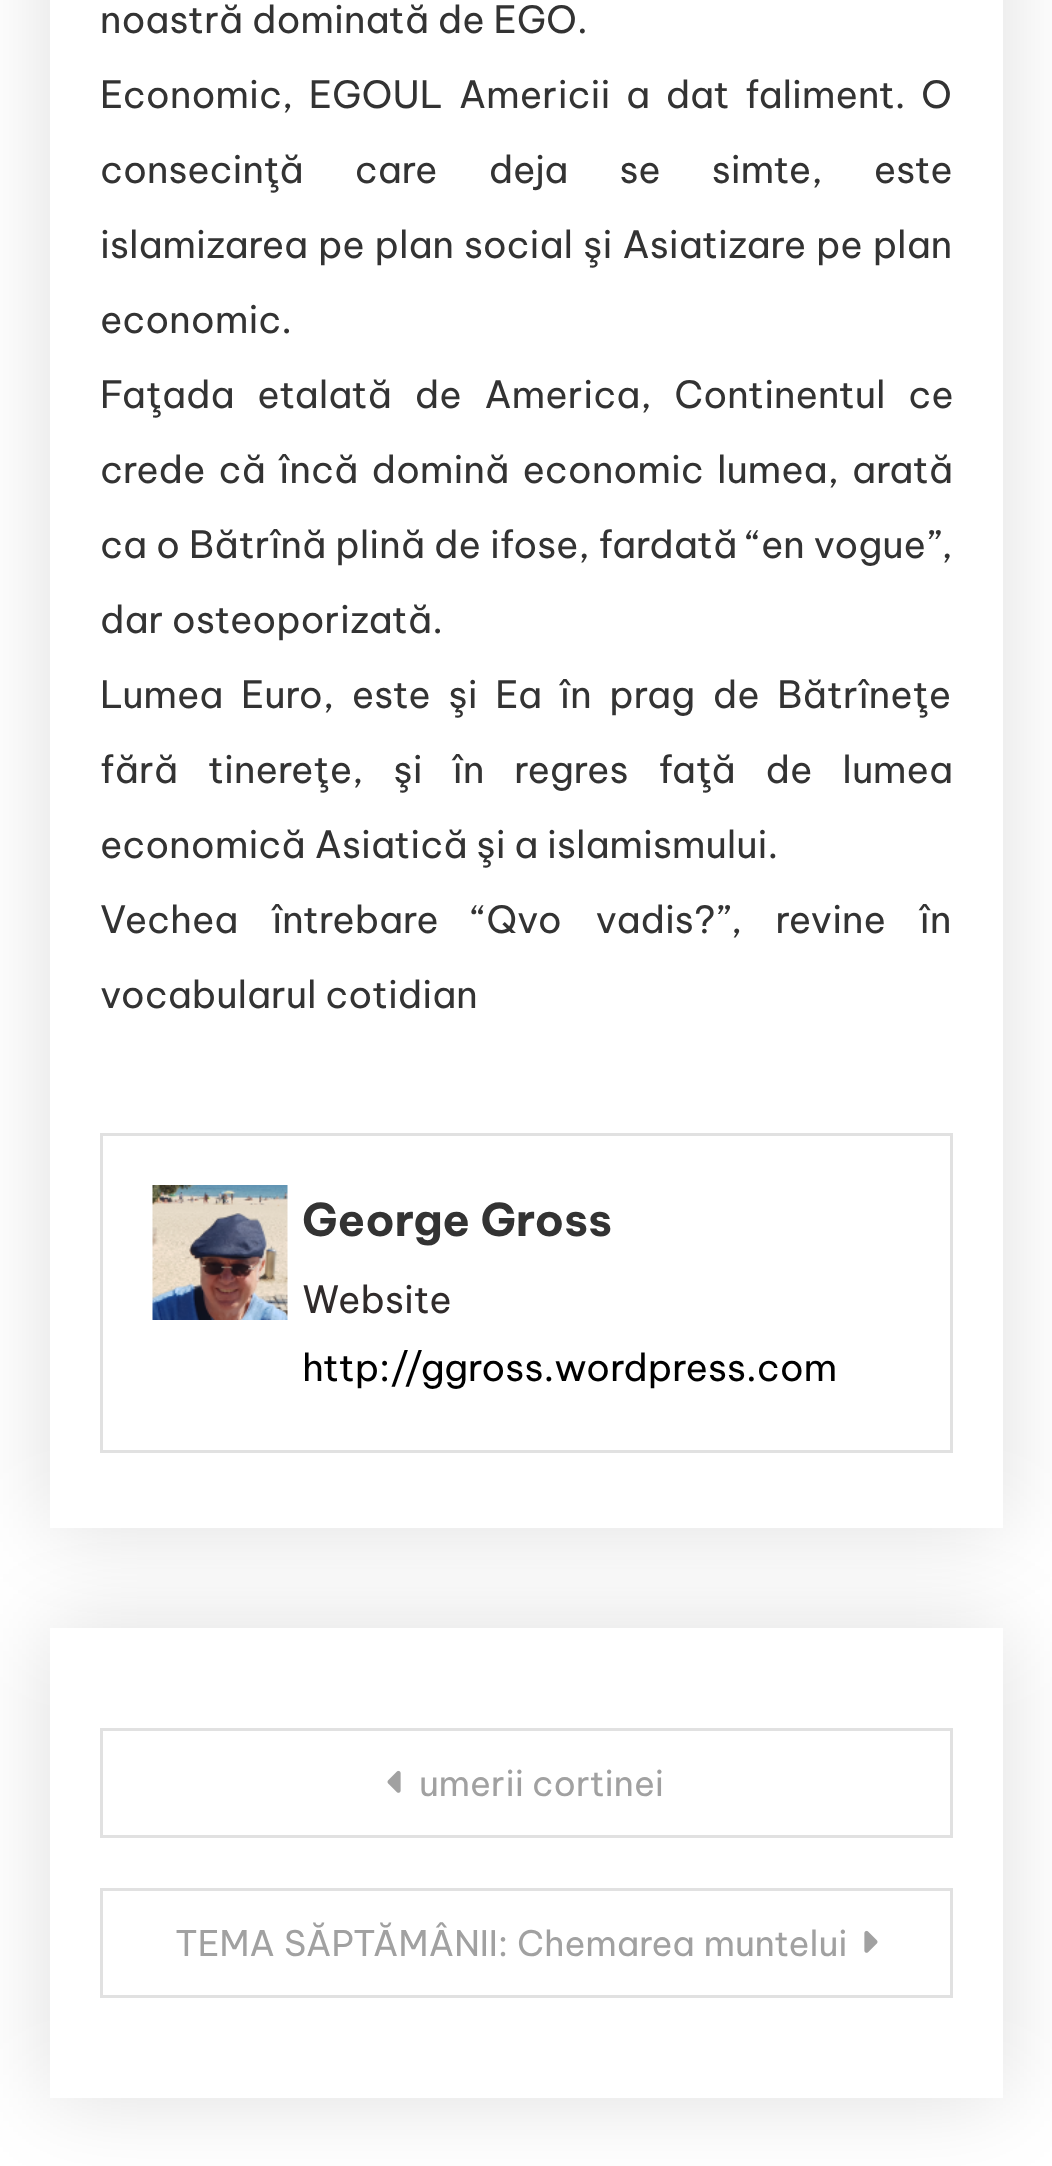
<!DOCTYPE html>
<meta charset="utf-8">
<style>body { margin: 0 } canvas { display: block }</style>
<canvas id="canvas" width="1052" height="2166"></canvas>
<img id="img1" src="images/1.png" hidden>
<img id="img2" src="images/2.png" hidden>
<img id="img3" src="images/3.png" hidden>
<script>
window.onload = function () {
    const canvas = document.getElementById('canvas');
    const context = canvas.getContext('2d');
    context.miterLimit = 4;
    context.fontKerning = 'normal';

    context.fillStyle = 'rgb(255, 255, 255)';
    context.fillRect(0, 0, 1052, 2166);
    context.fillStyle = 'rgba(0, 0, 0, 0.13)';
    context.filter = 'blur(44px)';
    context.beginPath();
    context.rect(50, 1628, 953, 470);
    context.fill();
    context.filter = 'none';
    context.fillStyle = 'rgb(255, 255, 255)';
    context.fillRect(50, 1628, 953, 470);
    context.save();
    context.beginPath();
    context.moveTo(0, 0);
    context.lineTo(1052, 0);
    context.lineTo(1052, 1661);
    context.lineTo(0, 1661);
    context.closePath();
    context.moveTo(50, -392);
    context.lineTo(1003, -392);
    context.lineTo(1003, 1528);
    context.lineTo(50, 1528);
    context.closePath();
    context.clip('evenodd');
    context.fillStyle = 'rgba(0, 0, 0, 0.13)';
    context.filter = 'blur(44px)';
    context.beginPath();
    context.rect(50, -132, 953, 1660);
    context.fill();
    context.filter = 'none';
    context.restore();
    context.strokeStyle = 'rgb(225, 225, 225)';
    context.lineWidth = 3;
    context.strokeRect(101.5, 1134.5, 850, 317);
    context.drawImage(document.getElementById('img1'), 152, 1185, 136, 135);
    context.strokeRect(101.5, 1729.5, 850, 107);
    context.drawImage(document.getElementById('img2'), 387, 1770, 14, 23);
    context.strokeRect(101.5, 1889.5, 850, 107);
    context.drawImage(document.getElementById('img3'), 864, 1930, 14, 23);
    context.font = '37.5px Be Vietnam Pro';
    context.fillStyle = 'rgb(51, 51, 51)';
    context.fillText('noastră dominată de EGO.', 100, 33);
    context.wordSpacing = '7px';
    context.fillText('Economic, EGOUL Americii a dat faliment. O', 100, 108);
    context.wordSpacing = '42.5px';
    context.fillText('consecinţă care deja se simte, este', 100, 183);
    context.wordSpacing = '1.25px';
    context.fillText('islamizarea pe plan social şi Asiatizare pe plan', 100, 258);
    context.wordSpacing = '0px';
    context.fillText('economic.', 100, 333);
    context.wordSpacing = '14px';
    context.fillText('Faţada etalată de America, Continentul ce', 100, 408);
    context.wordSpacing = '4.5px';
    context.fillText('crede că încă domină economic lumea, arată', 100, 483);
    context.wordSpacing = '0.25px';
    context.fillText('ca o Bătrînă plină de ifose, fardată', 100, 558);
    context.wordSpacing = '0px';
    context.fillText('“en vogue”,', 747, 558);
    context.fillText('dar osteoporizată.', 100, 633);
    context.wordSpacing = '9px';
    context.fillText('Lumea Euro, este şi Ea în prag de Bătrîneţe', 100, 708);
    context.wordSpacing = '21.25px';
    context.fillText('fără tinereţe, şi în regres faţă de lumea', 100, 783);
    context.wordSpacing = '0px';
    context.fillText('economică Asiatică şi a islamismului.', 100, 858);
    context.wordSpacing = '25px';
    context.fillText('Vechea întrebare “Qvo vadis?”, revine în', 100, 933);
    context.wordSpacing = '0px';
    context.fillText('vocabularul cotidian', 100, 1008);
    context.font = 'bold 45px Be Vietnam Pro';
    context.fillText('George Gross', 302, 1236);
    context.font = '37.5px Be Vietnam Pro';
    context.fillStyle = 'rgb(48, 43, 43)';
    context.fillText('Website', 302, 1313);
    context.fillStyle = 'rgb(0, 0, 0)';
    context.fillText('http://ggross.wordpress.com', 302, 1381);
    context.font = '35px Be Vietnam Pro';
    context.fillStyle = 'rgb(161, 161, 161)';
    context.fillText('umerii cortinei', 419, 1796);
    context.wordSpacing = '1px';
    context.fillText('TEMA SĂPTĂMÂNII: Chemarea muntelui', 175, 1956);
};
</script>
